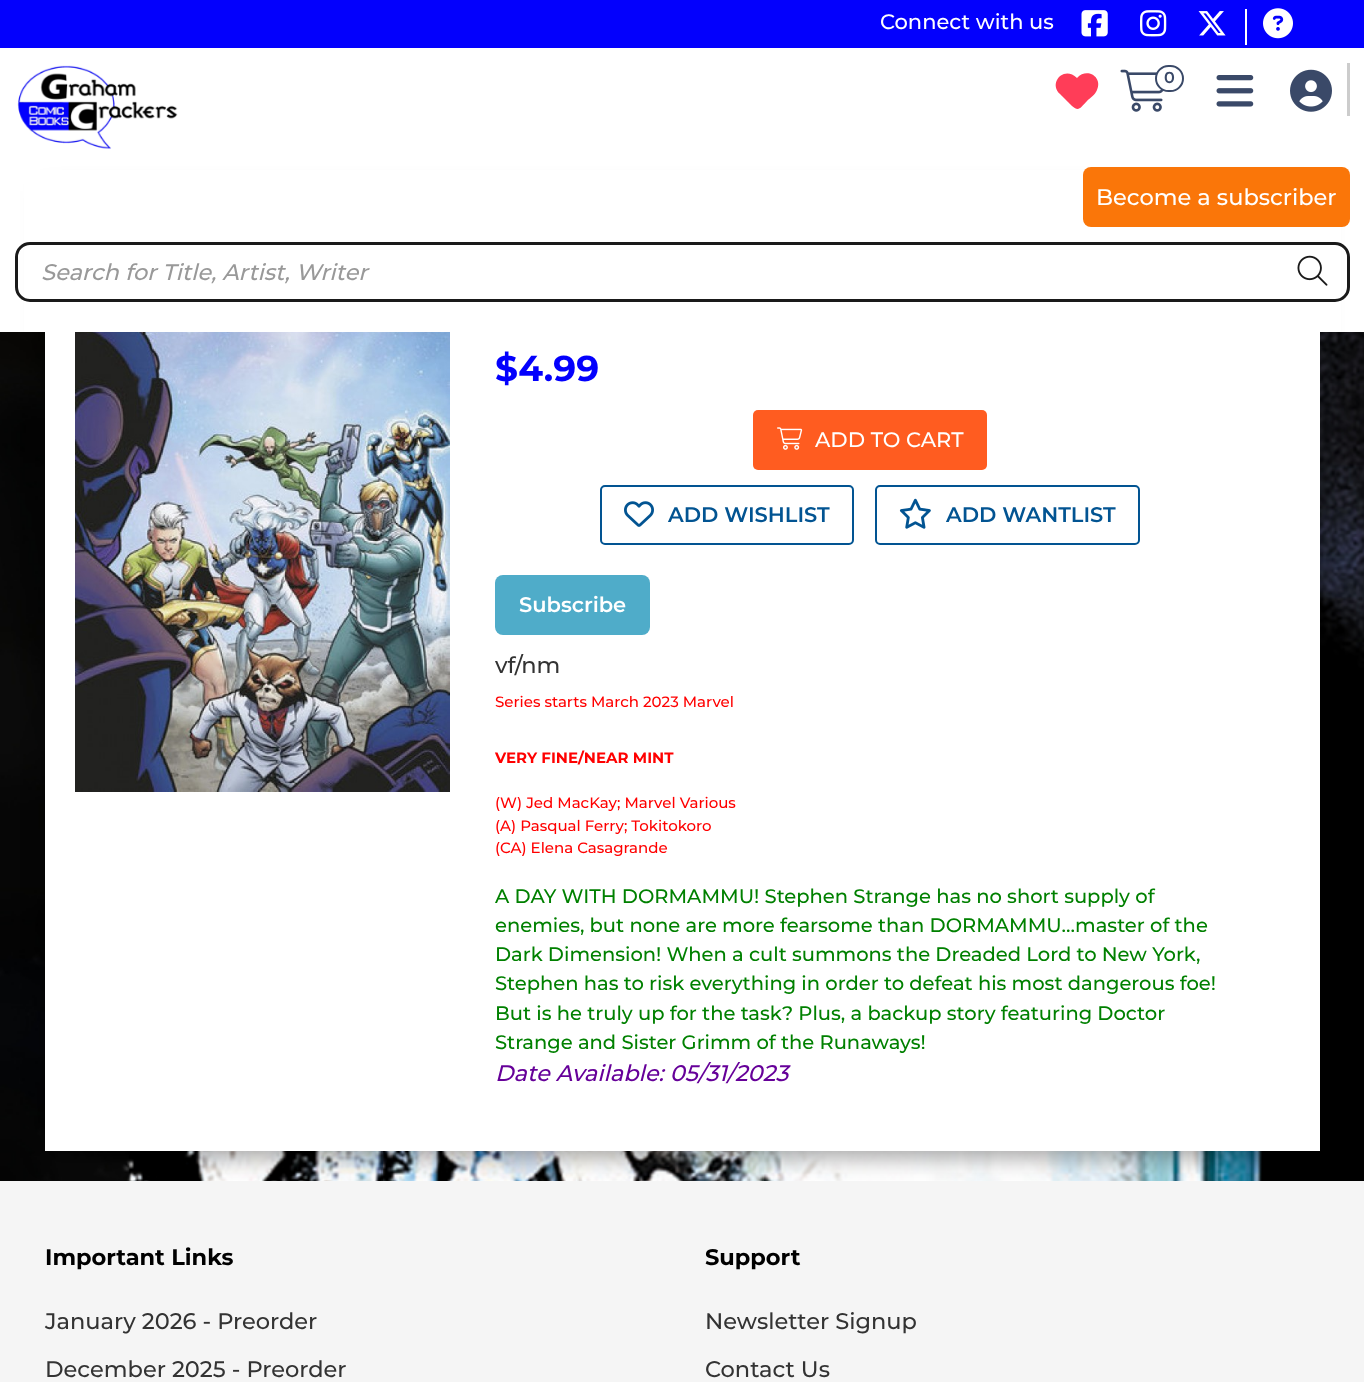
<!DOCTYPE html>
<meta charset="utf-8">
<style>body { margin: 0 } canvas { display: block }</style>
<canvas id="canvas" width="1364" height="1382"></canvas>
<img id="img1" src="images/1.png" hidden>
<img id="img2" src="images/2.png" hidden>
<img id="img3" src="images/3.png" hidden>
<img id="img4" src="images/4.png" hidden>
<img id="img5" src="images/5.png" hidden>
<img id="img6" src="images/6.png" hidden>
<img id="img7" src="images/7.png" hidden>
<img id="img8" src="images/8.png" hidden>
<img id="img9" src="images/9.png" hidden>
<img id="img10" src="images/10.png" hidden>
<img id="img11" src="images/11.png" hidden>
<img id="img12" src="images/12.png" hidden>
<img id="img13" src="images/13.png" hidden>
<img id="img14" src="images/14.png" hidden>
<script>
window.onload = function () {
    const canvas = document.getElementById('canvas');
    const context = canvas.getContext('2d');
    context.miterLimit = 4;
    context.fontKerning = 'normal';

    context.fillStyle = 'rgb(255, 255, 255)';
    context.fillRect(0, 0, 1364, 1382);
    context.drawImage(document.getElementById('img1'), 0, 332, 1364, 849);
    context.fillStyle = 'rgb(3, 0, 253)';
    context.fillRect(0, 0, 1364, 48);
    context.drawImage(document.getElementById('img2'), 1081, 10, 27, 27);
    context.drawImage(document.getElementById('img3'), 1140, 10, 27, 27);
    context.drawImage(document.getElementById('img4'), 1198, 11, 28, 25);
    context.fillStyle = 'rgb(255, 255, 255)';
    context.fillRect(1245, 9, 2, 36);
    context.drawImage(document.getElementById('img5'), 1263, 8, 30, 31);
    context.fillStyle = 'rgba(0, 0, 0, 0.35)';
    context.filter = 'blur(11px)';
    context.beginPath();
    context.rect(45, 191, 1275, 967);
    context.fill();
    context.filter = 'none';
    context.fillStyle = 'rgb(255, 255, 255)';
    context.fillRect(24, 170, 1317, 162);
    context.drawImage(document.getElementById('img6'), 17, 65, 161, 84);
    context.fillStyle = 'rgb(204, 204, 204)';
    context.fillRect(1347, 63, 3, 53);
    context.fillStyle = 'rgb(255, 61, 88)';
    context.beginPath();
    context.moveTo(1060, 94);
    context.lineTo(1075, 108);
    context.lineTo(1060, 94);
    context.lineTo(1072, 106);
    context.bezierCurveTo(1079, 112, 1080, 108, 1087, 101);
    context.bezierCurveTo(1090, 98, 1095, 95, 1097, 90);
    context.bezierCurveTo(1103, 77, 1087, 67, 1077, 78);
    context.bezierCurveTo(1064, 65, 1048, 83, 1060, 94);
    context.closePath();
    context.fill();
    context.drawImage(document.getElementById('img7'), 1120, 69, 44, 43);
    context.fillStyle = 'rgb(255, 255, 255)';
    context.beginPath();
    context.roundRect(1156, 66, 27, 25, 12.5);
    context.fill();
    context.strokeStyle = 'rgb(58, 73, 104)';
    context.lineWidth = 2;
    context.stroke();
    context.drawImage(document.getElementById('img8'), 1216, 75, 38, 32);
    context.drawImage(document.getElementById('img9'), 1290, 69, 42, 43);
    context.fillStyle = 'rgb(250, 118, 9)';
    context.beginPath();
    context.roundRect(1083, 167, 267, 60, 8);
    context.fill();
    context.beginPath();
    context.roundRect(16.5, 243.5, 1332, 57, 13.5);
    context.strokeStyle = 'rgb(26, 26, 26)';
    context.lineWidth = 3;
    context.stroke();
    context.drawImage(document.getElementById('img10'), 1297, 255, 31, 31);
    context.fillStyle = 'rgb(255, 255, 255)';
    context.fillRect(45, 332, 1275, 819);
    context.drawImage(document.getElementById('img11'), 75, 332, 375, 460);
    context.fillStyle = 'rgb(255, 92, 32)';
    context.beginPath();
    context.roundRect(753, 410, 234, 60, 5);
    context.fill();
    context.drawImage(document.getElementById('img12'), 777, 427, 26, 23);
    context.beginPath();
    context.roundRect(601, 486, 252, 58, 4);
    context.strokeStyle = 'rgb(2, 84, 146)';
    context.lineWidth = 2;
    context.stroke();
    context.drawImage(document.getElementById('img13'), 624, 501, 30, 26);
    context.beginPath();
    context.roundRect(876, 486, 263, 58, 4);
    context.stroke();
    context.drawImage(document.getElementById('img14'), 899, 498, 32, 31);
    context.fillStyle = 'rgb(79, 172, 201)';
    context.beginPath();
    context.roundRect(495, 575, 155, 60, 8);
    context.fill();
    context.fillStyle = 'rgb(245, 245, 245)';
    context.fillRect(0, 1181, 1364, 201);
    context.font = '500 21px Montserrat';
    context.fillStyle = 'rgb(255, 255, 255)';
    context.fillText('Connect with us', 880, 29);
    context.font = '600 16px Montserrat';
    context.fillStyle = 'rgb(58, 73, 104)';
    context.fillText('0', 1164, 83);
    context.font = '500 22.5px Montserrat';
    context.fillStyle = 'rgb(255, 255, 255)';
    context.fillText('Become a subscriber', 1096, 205);
    context.font = 'italic 500 22.5px Montserrat';
    context.fillStyle = 'rgb(153, 153, 153)';
    context.fillText('Search for Title, Artist, Writer', 41, 280);
    context.font = 'bold 36px Montserrat';
    context.fillStyle = 'rgb(3, 0, 253)';
    context.fillText('$4.99', 495, 381);
    context.font = '500 21px Montserrat';
    context.fillStyle = 'rgb(255, 255, 255)';
    context.fillText('ADD TO CART', 815, 447);
    context.font = '600 21px Montserrat';
    context.fillStyle = 'rgb(2, 84, 146)';
    context.fillText('ADD WISHLIST', 668, 522);
    context.fillText('ADD WANTLIST', 946, 522);
    context.fillStyle = 'rgb(255, 255, 255)';
    context.fillText('Subscribe', 519, 612);
    context.font = '500 22.5px Montserrat';
    context.fillStyle = 'rgb(51, 51, 51)';
    context.fillText('vf/nm', 495, 673);
    context.font = '500 15px Montserrat';
    context.fillStyle = 'rgb(255, 0, 0)';
    context.fillText('Series starts March 2023 Marvel', 495, 707);
    context.font = 'bold 15px Montserrat';
    context.fillText('VERY FINE/NEAR MINT', 495, 763);
    context.font = '500 15px Montserrat';
    context.fillText('(W) Jed MacKay; Marvel Various', 495, 808);
    context.fillText('(A) Pasqual Ferry; Tokitokoro', 495, 831);
    context.fillText('(CA) Elena Casagrande', 495, 853);
    context.font = '500 19.5px Montserrat';
    context.fillStyle = 'rgb(0, 128, 0)';
    context.fillText('A DAY WITH DORMAMMU! Stephen Strange has no short supply of', 495, 903);
    context.fillText('enemies, but none are more fearsome than DORMAMMU…master of the', 495, 932);
    context.fillText('Dark Dimension! When a cult summons the Dreaded Lord to New York,', 495, 961);
    context.fillText('Stephen has to risk everything in order to defeat his most dangerous foe!', 495, 990);
    context.fillText('But is he truly up for the task? Plus, a backup story featuring Doctor', 495, 1020);
    context.fillText('Strange and Sister Grimm of the Runaways!', 495, 1049);
    context.font = 'italic 500 22.5px Montserrat';
    context.fillStyle = 'rgb(102, 0, 153)';
    context.fillText('Date Available: 05/31/2023', 495, 1081);
    context.font = 'bold 22.5px Montserrat';
    context.fillStyle = 'rgb(0, 0, 0)';
    context.fillText('Important Links', 45, 1265);
    context.font = '500 22.5px Montserrat';
    context.fillStyle = 'rgb(51, 51, 51)';
    context.fillText('January 2026 - Preorder', 45, 1329);
    context.fillText('December 2025 - Preorder', 45, 1377);
    context.font = 'bold 22.5px Montserrat';
    context.fillStyle = 'rgb(0, 0, 0)';
    context.fillText('Support', 705, 1265);
    context.font = '500 22.5px Montserrat';
    context.fillStyle = 'rgb(51, 51, 51)';
    context.fillText('Newsletter Signup', 705, 1329);
    context.fillText('Contact Us', 705, 1377);
};
</script>
